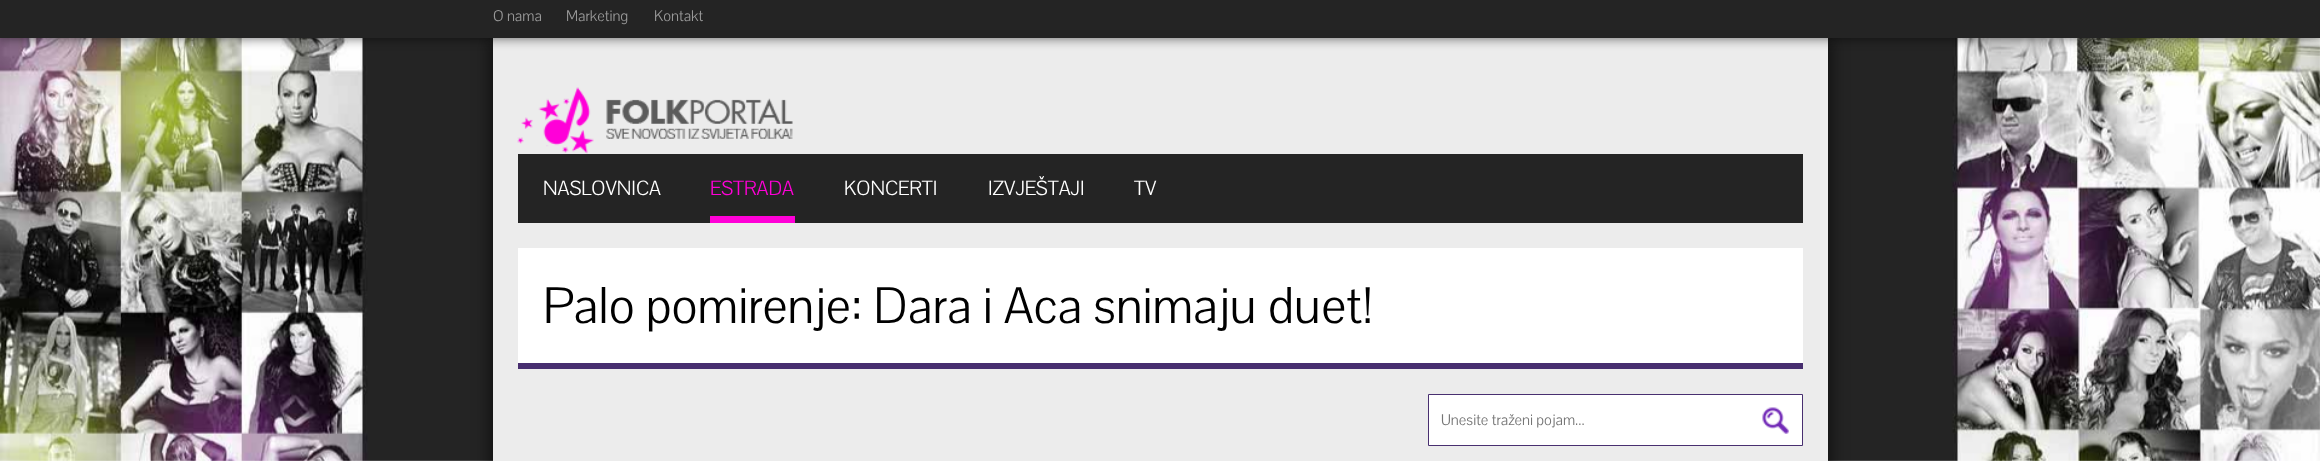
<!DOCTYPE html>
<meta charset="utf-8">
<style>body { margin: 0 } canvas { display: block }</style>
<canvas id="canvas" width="2320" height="461"></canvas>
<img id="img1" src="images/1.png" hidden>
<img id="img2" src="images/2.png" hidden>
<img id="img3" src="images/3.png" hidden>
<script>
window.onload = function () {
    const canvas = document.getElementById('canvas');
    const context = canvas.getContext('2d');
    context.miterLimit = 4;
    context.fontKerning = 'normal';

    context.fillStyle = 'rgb(255, 255, 255)';
    context.fillRect(0, 0, 2320, 461);
    context.drawImage(document.getElementById('img1'), 0, 38, 2320, 423);
    context.fillStyle = 'rgba(0, 0, 0, 0.75)';
    context.filter = 'blur(9.5px)';
    context.beginPath();
    context.rect(493, 38, 1335, 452);
    context.fill();
    context.filter = 'none';
    context.fillStyle = 'rgb(236, 236, 236)';
    context.fillRect(493, 38, 1335, 423);
    context.fillStyle = 'rgba(0, 0, 0, 0.6)';
    context.filter = 'blur(6px)';
    context.beginPath();
    context.rect(0, 0, 2320, 38);
    context.fill();
    context.filter = 'none';
    context.fillStyle = 'rgb(36, 36, 36)';
    context.fillRect(0, 0, 2320, 38);
    context.drawImage(document.getElementById('img2'), 517, 87, 276, 67);
    context.fillRect(518, 154, 1285, 69);
    context.fillStyle = 'rgb(255, 0, 215)';
    context.fillRect(710, 216, 85, 7);
    context.fillStyle = 'rgb(255, 255, 255)';
    context.fillRect(518, 248, 1285, 115);
    context.fillStyle = 'rgb(71, 46, 111)';
    context.fillRect(518, 363, 1285, 6);
    context.fillStyle = 'rgb(255, 255, 255)';
    context.beginPath();
    context.rect(1428.5, 394.5, 374, 51);
    context.fill();
    context.strokeStyle = 'rgb(72, 47, 112)';
    context.stroke();
    context.drawImage(document.getElementById('img3'), 1762, 407, 27, 27);
    context.font = '15px Pontano Sans';
    context.fillStyle = 'rgb(153, 153, 153)';
    context.fillText('O nama', 493, 21);
    context.fillText('Marketing', 566, 21);
    context.fillText('Kontakt', 654, 21);
    context.font = '20px Pontano Sans';
    context.fillStyle = 'rgb(255, 255, 255)';
    context.fillText('NASLOVNICA', 543, 195);
    context.fillStyle = 'rgb(255, 0, 215)';
    context.fillText('ESTRADA', 710, 195);
    context.fillStyle = 'rgb(255, 255, 255)';
    context.fillText('KONCERTI', 844, 195);
    context.fillText('IZVJEŠTAJI', 988, 195);
    context.fillText('TV', 1134, 195);
    context.font = '50px Pontano Sans';
    context.fillStyle = 'rgb(0, 0, 0)';
    context.fillText('Palo pomirenje: Dara i Aca snimaju duet!', 543, 323);
    context.font = '15px Pontano Sans';
    context.fillStyle = 'rgb(117, 117, 117)';
    context.fillText('Unesite traženi pojam...', 1441, 425);
};
</script>
